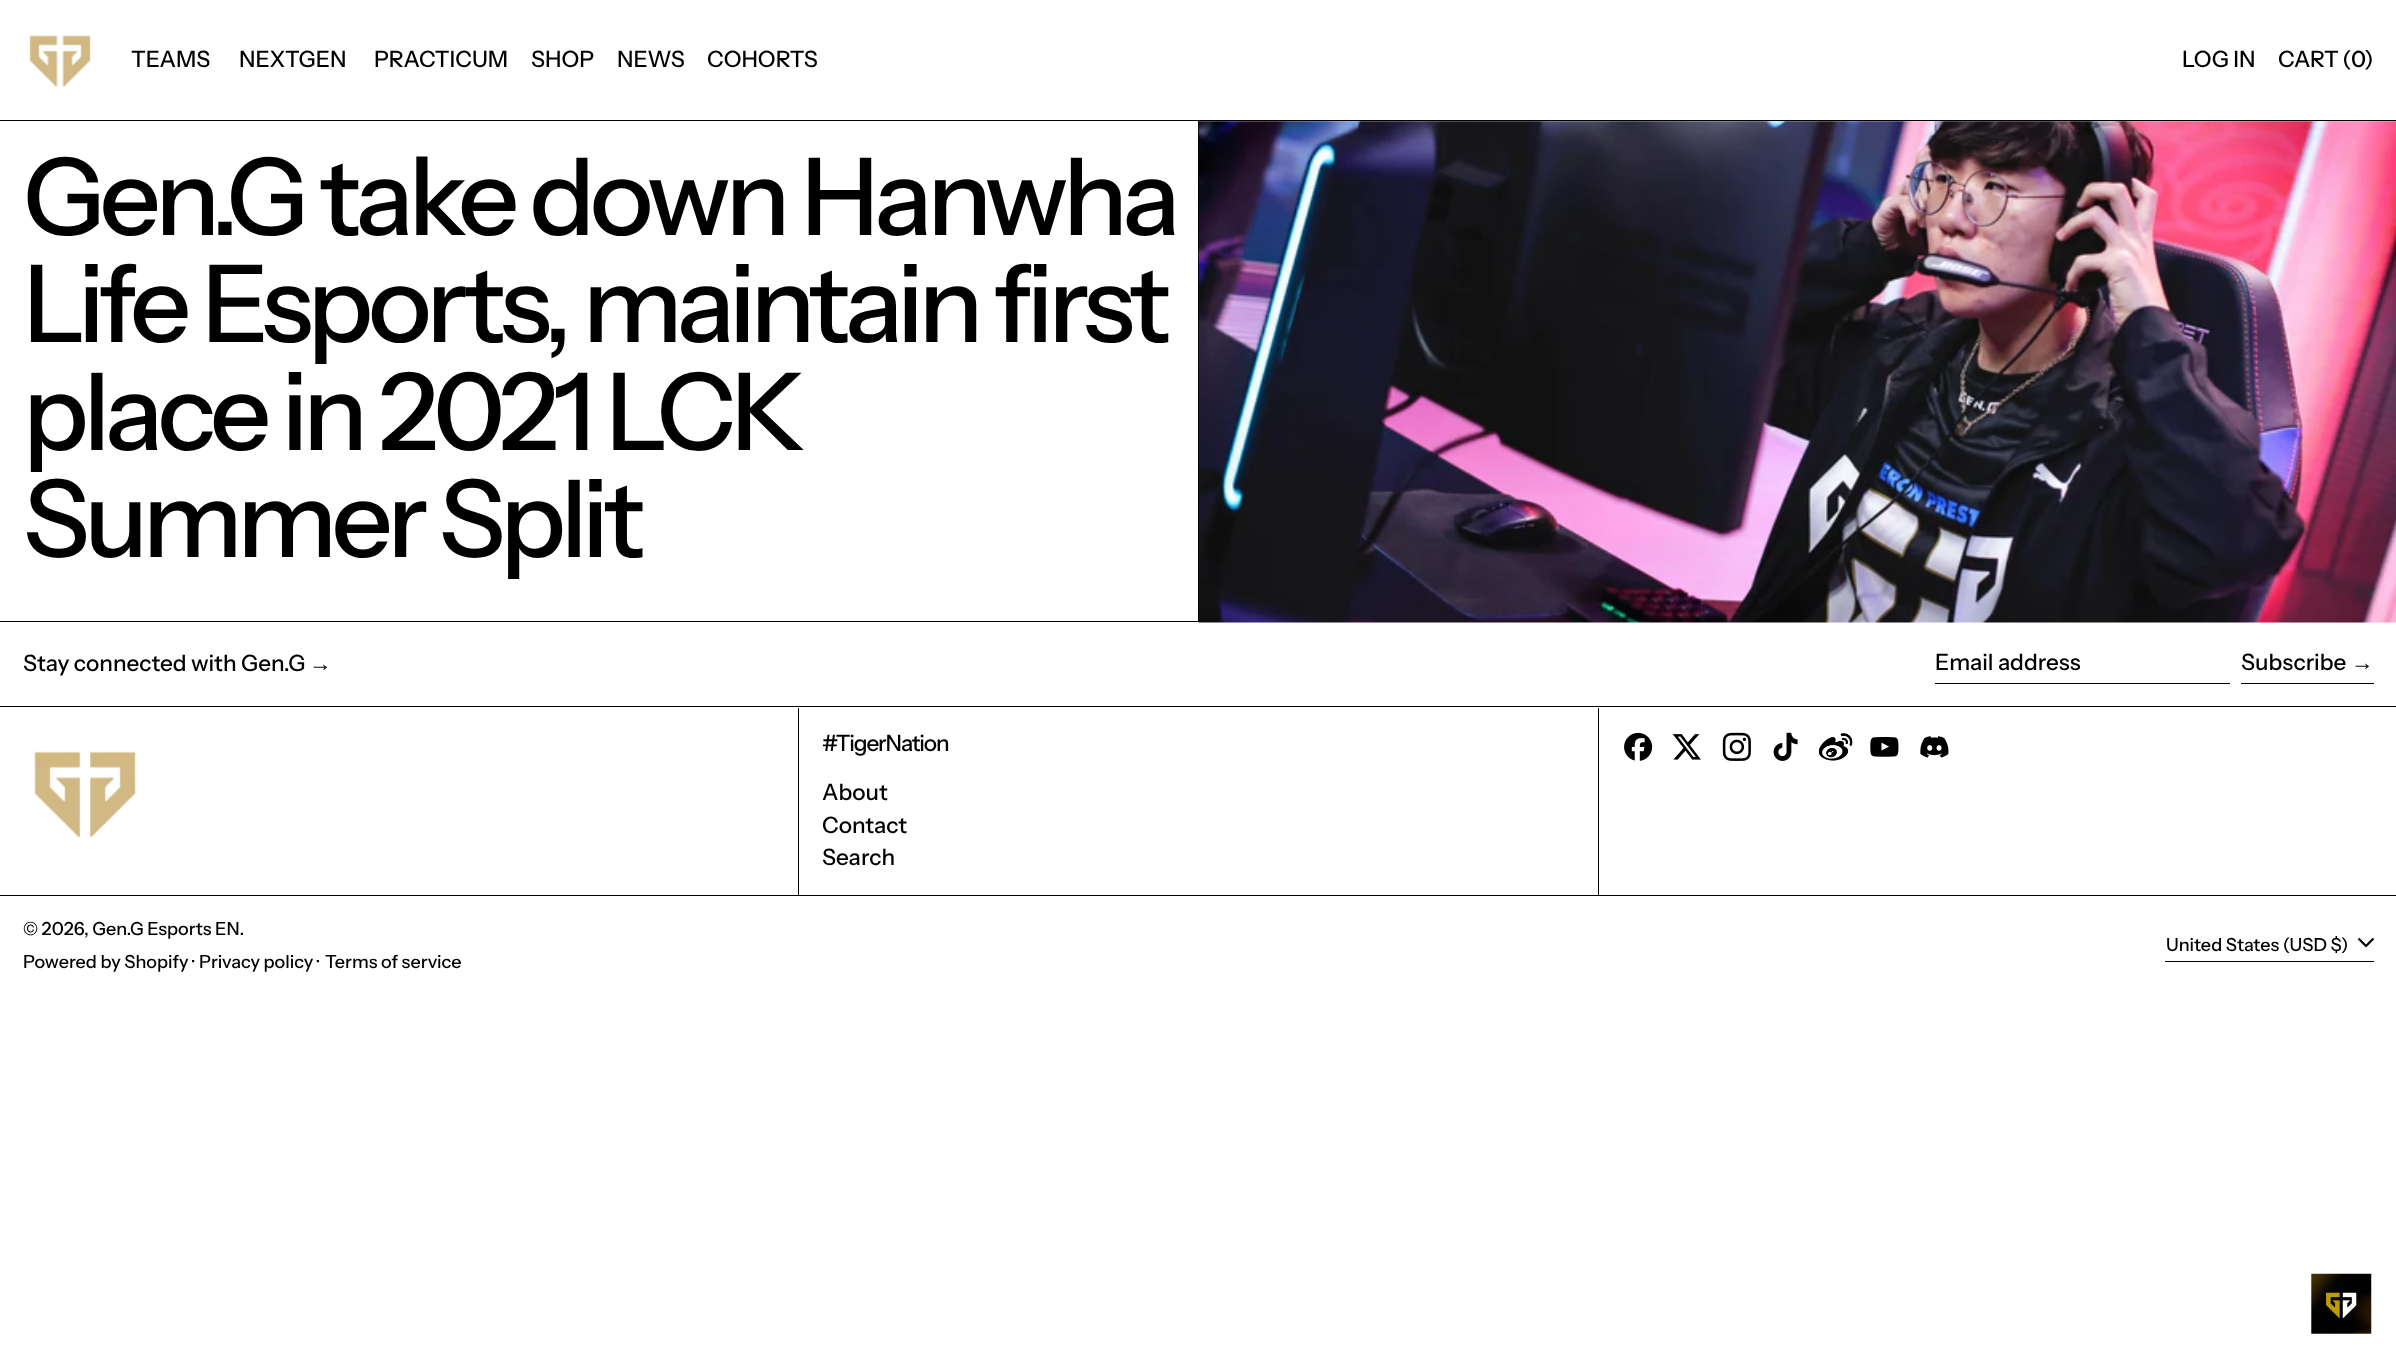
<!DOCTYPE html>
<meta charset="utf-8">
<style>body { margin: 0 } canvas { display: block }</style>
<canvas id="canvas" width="2396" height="1358"></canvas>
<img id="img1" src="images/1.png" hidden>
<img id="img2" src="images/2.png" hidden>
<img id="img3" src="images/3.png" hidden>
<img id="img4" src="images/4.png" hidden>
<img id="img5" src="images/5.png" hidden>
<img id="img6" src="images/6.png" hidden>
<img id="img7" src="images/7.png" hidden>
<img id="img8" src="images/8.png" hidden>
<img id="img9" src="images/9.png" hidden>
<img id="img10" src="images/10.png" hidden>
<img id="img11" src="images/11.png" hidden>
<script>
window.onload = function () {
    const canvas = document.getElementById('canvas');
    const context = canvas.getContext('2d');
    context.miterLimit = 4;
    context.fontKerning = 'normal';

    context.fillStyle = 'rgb(255, 255, 255)';
    context.fillRect(0, 0, 2396, 1358);
    context.fillStyle = 'rgb(0, 0, 0)';
    context.fillRect(0, 120, 2396, 1);
    context.drawImage(document.getElementById('img1'), 29, 35, 62, 53);
    context.fillRect(0, 621, 1199, 1);
    context.fillRect(1198, 121, 1, 500);
    context.drawImage(document.getElementById('img2'), 1198, 121, 1198, 502);
    context.fillRect(0, 706, 2396, 1);
    context.fillRect(1935, 683, 295, 1);
    context.fillRect(2241, 683, 133, 1);
    context.fillRect(0, 895, 2396, 1);
    context.fillRect(798, 708, 801, 187);
    context.drawImage(document.getElementById('img3'), 34, 751, 103, 87);
    context.fillStyle = 'rgb(255, 255, 255)';
    context.fillRect(799, 708, 799, 187);
    context.drawImage(document.getElementById('img4'), 1624, 732, 29, 29);
    context.drawImage(document.getElementById('img5'), 1672, 734, 29, 26);
    context.drawImage(document.getElementById('img6'), 1722, 732, 29, 29);
    context.drawImage(document.getElementById('img7'), 1773, 732, 25, 29);
    context.drawImage(document.getElementById('img8'), 1818, 733, 35, 28);
    context.drawImage(document.getElementById('img9'), 1870, 737, 29, 20);
    context.drawImage(document.getElementById('img10'), 1920, 736, 29, 22);
    context.fillStyle = 'rgb(0, 0, 0)';
    context.fillRect(2165, 961, 209, 1);
    context.beginPath();
    context.moveTo(2358.5, 938.5);
    context.lineTo(2366, 946);
    context.lineTo(2373.5, 938.5);
    context.strokeStyle = 'rgb(0, 0, 0)';
    context.lineWidth = 2.2;
    context.stroke();
    context.drawImage(document.getElementById('img11'), 2311, 1273, 61, 61);
    context.font = '500 22.5px Instrument Sans';
    context.fillText('TEAMS', 131, 67);
    context.fillText('NEXTGEN', 239, 67);
    context.fillText('PRACTICUM', 374, 67);
    context.fillText('SHOP', 531, 67);
    context.fillText('NEWS', 617, 67);
    context.fillText('COHORTS', 707, 67);
    context.fillText('LOG IN', 2182, 67);
    context.wordSpacing = '-1px';
    context.fillText('CART (', 2278, 67);
    context.wordSpacing = '0px';
    context.fillText('0', 2351, 67);
    context.fillText(')', 2364, 67);
    context.letterSpacing = '-5.35px';
    context.font = '500 107.25px Instrument Sans';
    context.fillText('Gen.G take down Hanwha', 23, 235);
    context.fillText('Life Esports, maintain first', 23, 342);
    context.fillText('place in 2021 LCK', 23, 450);
    context.fillText('Summer Split', 23, 557);
    context.letterSpacing = '0px';
    context.font = '500 22.5px Instrument Sans';
    context.fillText('Stay connected with Gen.G', 23, 671);
    context.font = '22.5px Liberation Sans';
    context.fillText('→', 309, 671);
    context.font = '500 22.5px Instrument Sans';
    context.fillText('Email address', 1935, 670);
    context.fillText('Subscribe', 2241, 670);
    context.font = '22.5px Liberation Sans';
    context.fillText('→', 2351, 670);
    context.letterSpacing = '-1.1px';
    context.font = '500 22.5px Instrument Sans';
    context.fillText('#TigerNation', 822, 751);
    context.letterSpacing = '0px';
    context.fillText('About', 822, 800);
    context.fillText('Contact', 822, 833);
    context.fillText('Search', 822, 865);
    context.font = '500 18px Instrument Sans';
    context.fillText('© 2026, Gen.G Esports EN.', 23, 935);
    context.fillText('Powered by Shopify ·', 23, 968);
    context.fillText('Privacy policy ·', 199, 968);
    context.fillText('Terms of service', 325, 968);
    context.fillText('United States (USD $)', 2166, 951);
};
</script>
